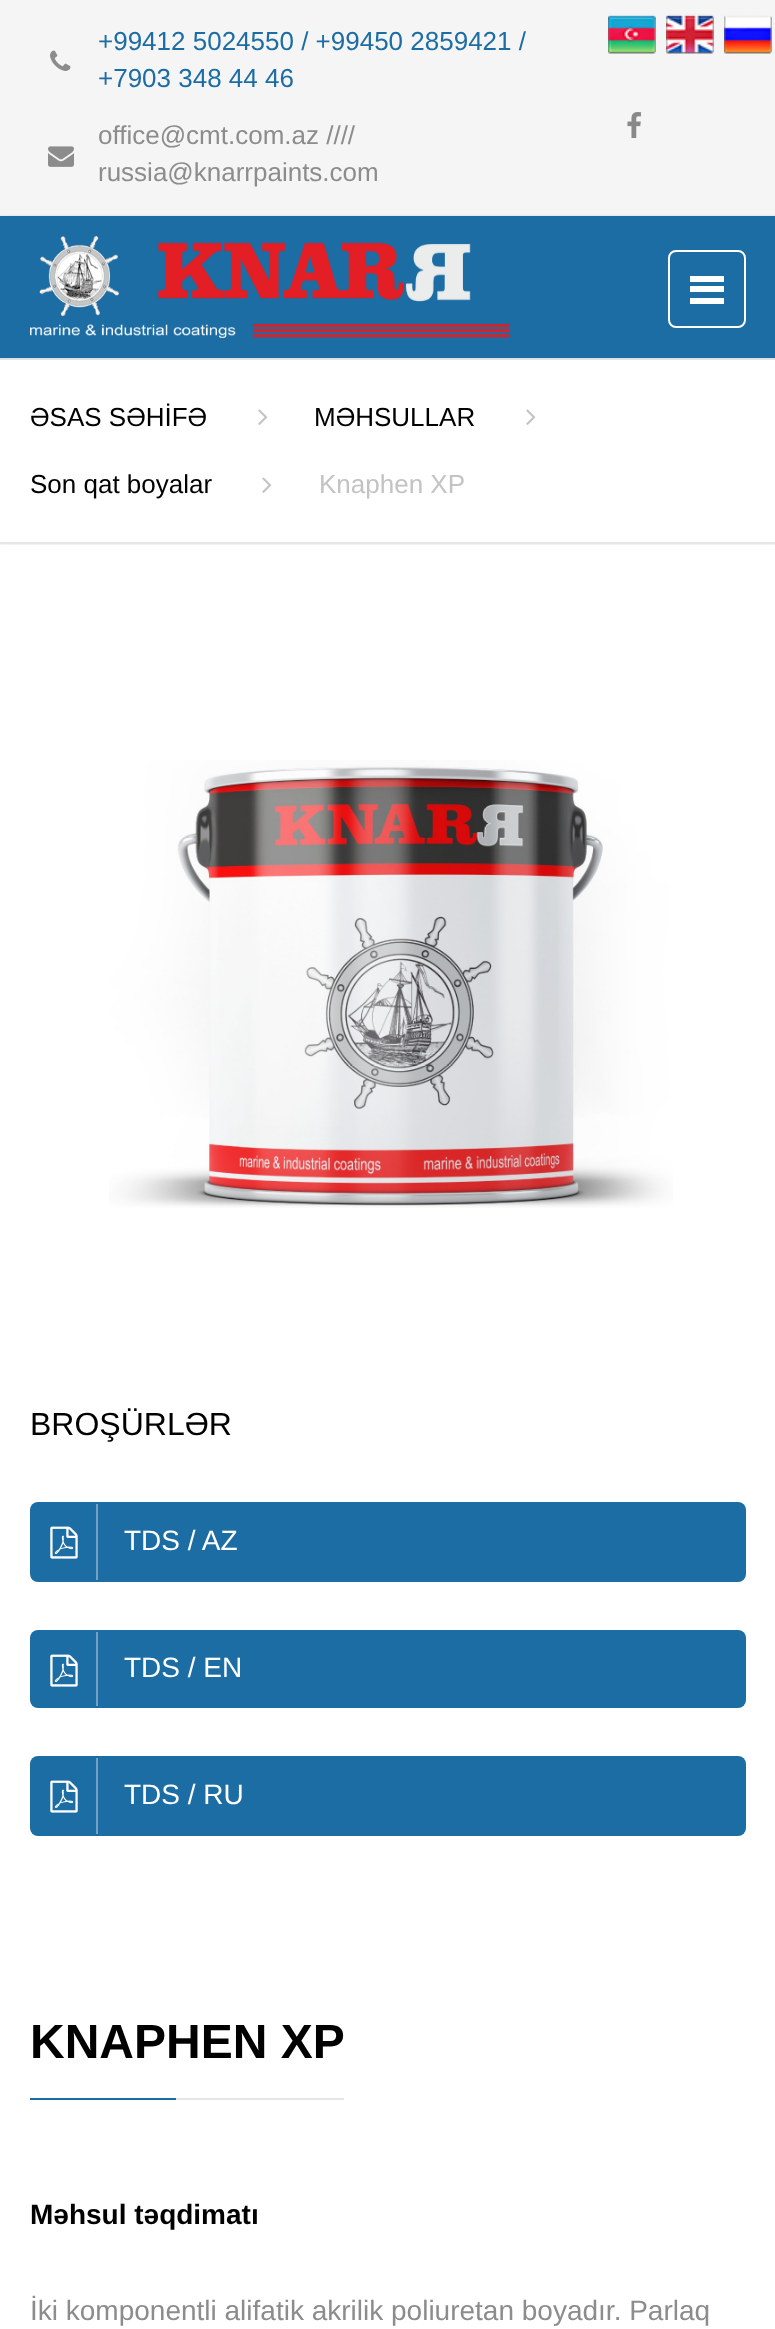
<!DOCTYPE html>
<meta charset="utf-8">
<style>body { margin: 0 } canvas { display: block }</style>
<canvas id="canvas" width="775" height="2329"></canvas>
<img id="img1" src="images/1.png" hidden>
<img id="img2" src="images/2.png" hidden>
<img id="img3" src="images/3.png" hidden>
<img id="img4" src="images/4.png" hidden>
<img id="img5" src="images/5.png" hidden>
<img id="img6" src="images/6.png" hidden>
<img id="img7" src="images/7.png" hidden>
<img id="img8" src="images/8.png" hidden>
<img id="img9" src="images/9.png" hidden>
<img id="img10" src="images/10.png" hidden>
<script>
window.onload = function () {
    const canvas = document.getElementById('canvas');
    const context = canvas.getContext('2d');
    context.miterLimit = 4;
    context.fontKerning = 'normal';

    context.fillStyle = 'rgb(255, 255, 255)';
    context.fillRect(0, 0, 775, 2329);
    context.fillStyle = 'rgb(245, 245, 245)';
    context.fillRect(0, 0, 775, 216);
    context.drawImage(document.getElementById('img1'), 50, 50, 21, 21);
    context.drawImage(document.getElementById('img2'), 48, 146, 26, 21);
    context.drawImage(document.getElementById('img3'), 608, 14, 48, 40);
    context.drawImage(document.getElementById('img4'), 666, 14, 48, 40);
    context.drawImage(document.getElementById('img5'), 724, 15, 48, 39);
    context.drawImage(document.getElementById('img6'), 627, 112, 14, 26);
    context.save();
    context.beginPath();
    context.rect(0, 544, 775, 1);
    context.clip();
    context.fillStyle = 'rgba(0, 0, 0, 0.14)';
    context.filter = 'blur(1px)';
    context.beginPath();
    context.rect(0, 358, 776, 186);
    context.fill();
    context.filter = 'none';
    context.restore();
    context.fillStyle = 'rgb(231, 231, 231)';
    context.fillRect(0, 358, 775, 2);
    context.fillStyle = 'rgba(0, 0, 0, 0.14)';
    context.filter = 'blur(1px)';
    context.beginPath();
    context.rect(0, 216, 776, 142);
    context.fill();
    context.filter = 'none';
    context.fillStyle = 'rgb(28, 109, 164)';
    context.fillRect(0, 216, 775, 142);
    context.drawImage(document.getElementById('img7'), 30, 236, 480, 102);
    context.beginPath();
    context.roundRect(669, 251, 76, 76, 7);
    context.strokeStyle = 'rgb(255, 255, 255)';
    context.lineWidth = 2;
    context.stroke();
    context.fillStyle = 'rgb(255, 255, 255)';
    context.fillRect(690, 276, 34, 6);
    context.fillRect(690, 286, 34, 6);
    context.fillRect(690, 298, 34, 6);
    context.fillStyle = 'rgb(231, 231, 231)';
    context.fillRect(0, 542, 775, 2);
    context.drawImage(document.getElementById('img8'), 258, 409, 10, 16);
    context.drawImage(document.getElementById('img8'), 526, 409, 10, 16);
    context.drawImage(document.getElementById('img8'), 262, 477, 10, 16);
    context.drawImage(document.getElementById('img9'), 109, 760, 564, 448);
    context.fillStyle = 'rgb(28, 109, 164)';
    context.beginPath();
    context.roundRect(30, 1502, 716, 80, 8);
    context.fill();
    context.drawImage(document.getElementById('img10'), 50, 1526, 28, 33);
    context.fillStyle = 'rgb(117, 162, 192)';
    context.fillRect(96, 1504, 2, 76);
    context.fillStyle = 'rgb(28, 109, 164)';
    context.beginPath();
    context.roundRect(30, 1630, 716, 78, 8);
    context.fill();
    context.drawImage(document.getElementById('img10'), 50, 1654, 28, 33);
    context.fillStyle = 'rgb(117, 162, 192)';
    context.fillRect(96, 1632, 2, 74);
    context.fillStyle = 'rgb(28, 109, 164)';
    context.beginPath();
    context.roundRect(30, 1756, 716, 80, 8);
    context.fill();
    context.drawImage(document.getElementById('img10'), 50, 1780, 28, 33);
    context.fillStyle = 'rgb(117, 162, 192)';
    context.fillRect(96, 1758, 2, 76);
    context.fillStyle = 'rgb(28, 109, 164)';
    context.fillRect(30, 2098, 146, 2);
    context.fillStyle = 'rgb(229, 229, 229)';
    context.fillRect(176, 2098, 168, 2);
    context.font = '26px Liberation Sans';
    context.fillStyle = 'rgb(28, 109, 164)';
    context.fillText('+99412 5024550 / +99450 2859421 /', 98, 50);
    context.fillText('+7903 348 44 46', 98, 87);
    context.fillStyle = 'rgb(140, 140, 140)';
    context.fillText('office@cmt.com.az ////', 98, 144);
    context.fillText('russia@knarrpaints.com', 98, 181);
    context.fillStyle = 'rgb(0, 0, 0)';
    context.fillText('ƏSAS SƏHİFƏ', 30, 426);
    context.fillText('MƏHSULLAR', 314, 426);
    context.fillText('Son qat boyalar', 30, 493);
    context.fillStyle = 'rgb(195, 195, 195)';
    context.fillText('Knaphen XP', 319, 493);
    context.font = '32px Liberation Sans';
    context.fillStyle = 'rgb(0, 0, 0)';
    context.fillText('BROŞÜRLƏR', 30, 1435);
    context.font = '28px Liberation Sans';
    context.fillStyle = 'rgb(255, 255, 255)';
    context.fillText('TDS / AZ', 124, 1550);
    context.fillText('TDS / EN', 124, 1677);
    context.fillText('TDS / RU', 124, 1804);
    context.font = 'bold 48px Liberation Sans';
    context.fillStyle = 'rgb(0, 0, 0)';
    context.fillText('KNAPHEN XP', 30, 2058);
    context.font = 'bold 28px Liberation Sans';
    context.fillText('Məhsul təqdimatı', 30, 2224);
    context.font = '28px Liberation Sans';
    context.fillStyle = 'rgb(140, 140, 140)';
    context.fillText('İki komponentli alifatik akrilik poliuretan boyadır. Parlaq', 30, 2320);
};
</script>
